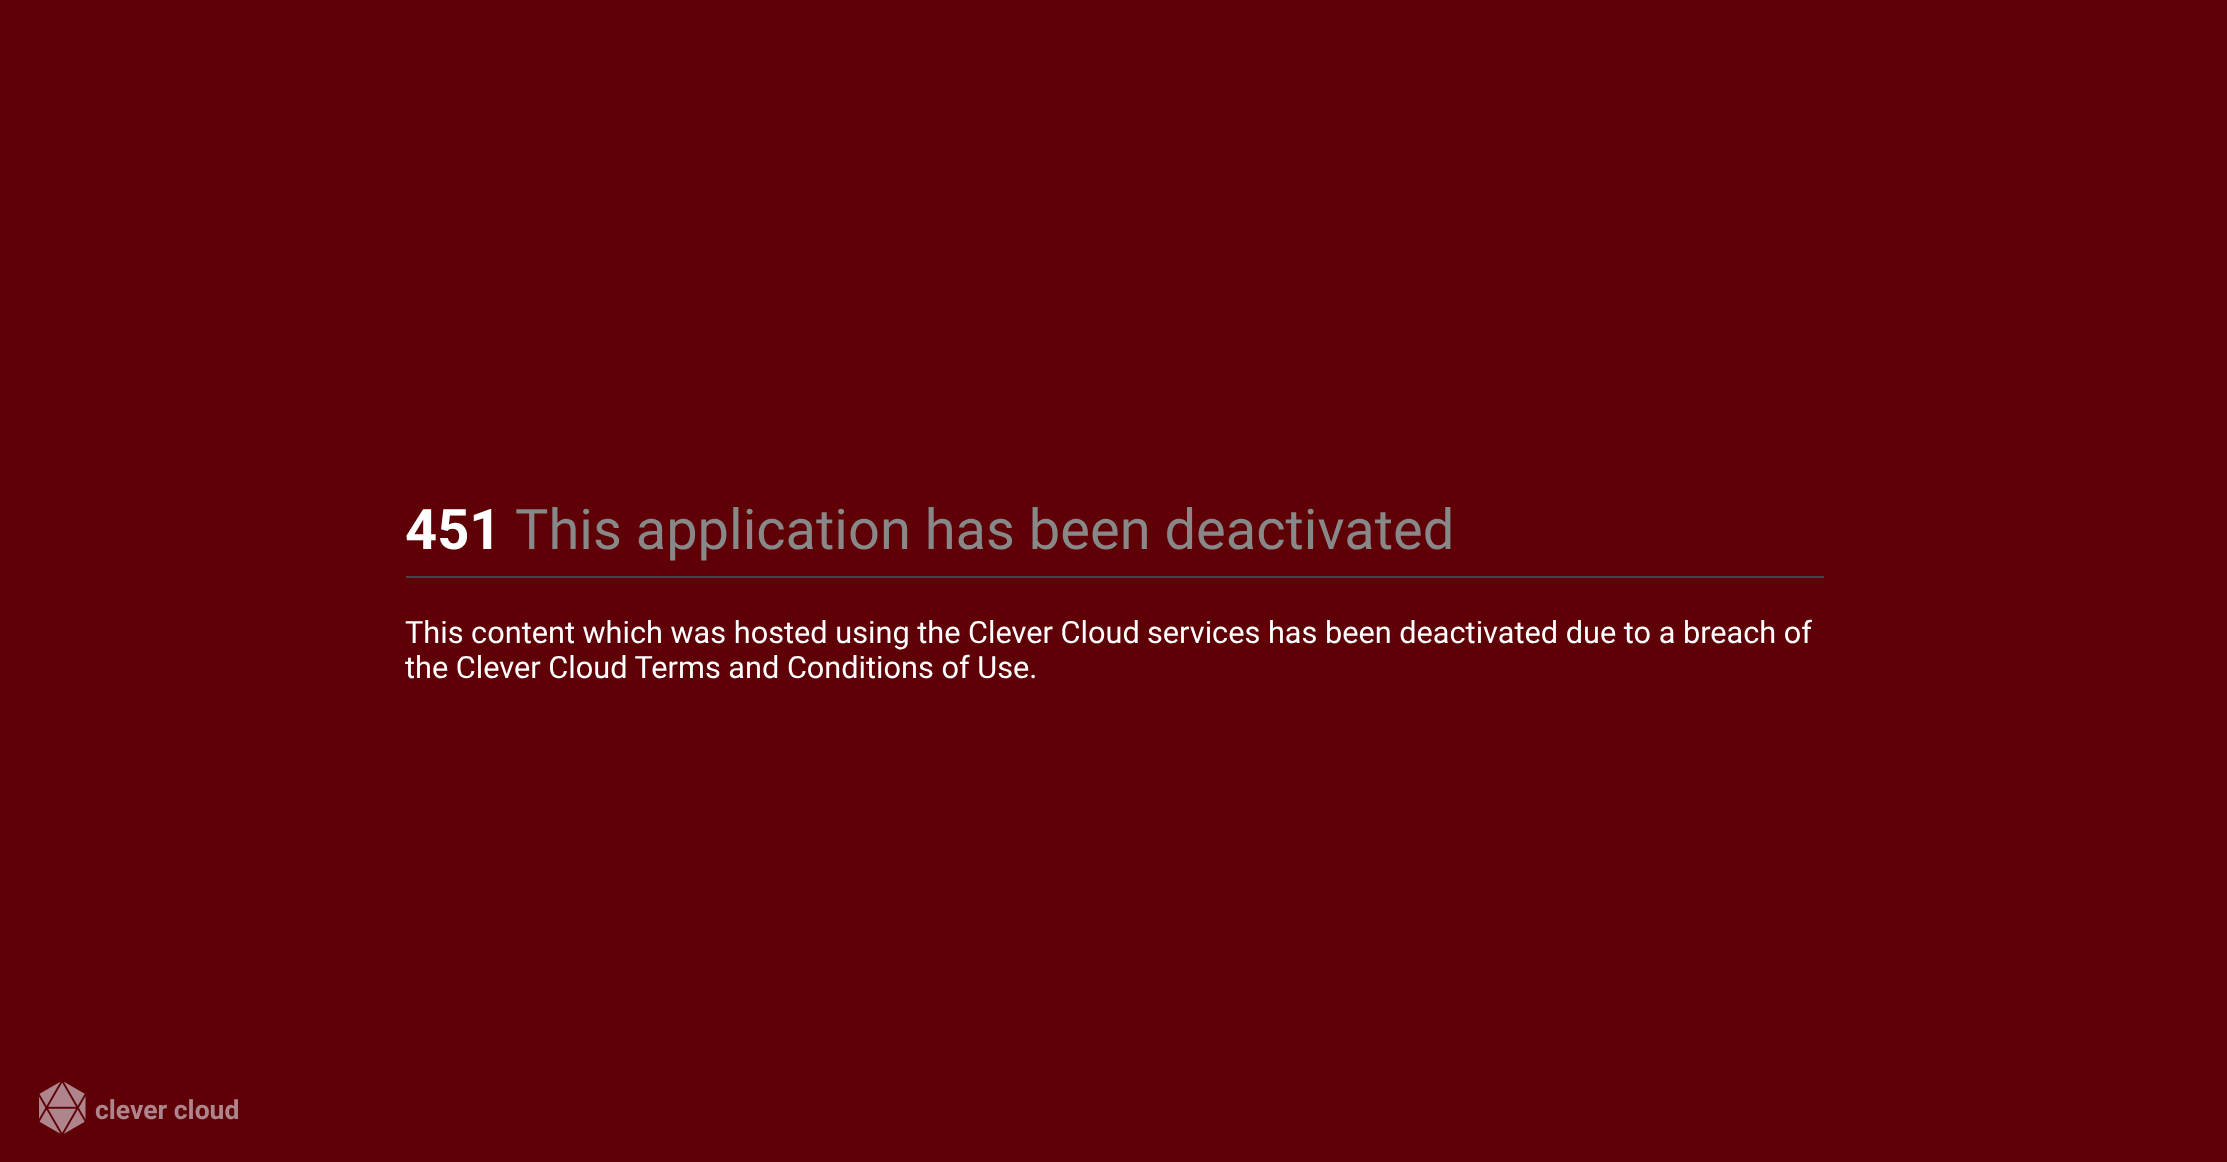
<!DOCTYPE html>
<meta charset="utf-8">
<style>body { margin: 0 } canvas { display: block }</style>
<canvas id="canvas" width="2227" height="1162"></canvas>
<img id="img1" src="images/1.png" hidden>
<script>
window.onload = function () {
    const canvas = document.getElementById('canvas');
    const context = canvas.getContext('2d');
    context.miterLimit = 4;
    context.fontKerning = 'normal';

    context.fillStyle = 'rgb(94, 0, 6)';
    context.fillRect(0, 0, 2227, 1162);
    context.fillStyle = 'rgb(65, 70, 74)';
    context.fillRect(406, 576, 1418, 2);
    context.drawImage(document.getElementById('img1'), 39, 1082, 47, 52);
    context.font = 'bold 56px Roboto';
    context.fillStyle = 'rgb(255, 255, 255)';
    context.fillText('451', 405, 549);
    context.font = '56px Roboto';
    context.fillStyle = 'rgb(136, 136, 136)';
    context.fillText('This application has been deactivated', 515, 549);
    context.font = '30.7px Roboto';
    context.fillStyle = 'rgb(255, 255, 255)';
    context.fillText('This content which was hosted using the Clever Cloud', 405, 643);
    context.fillText('services has been deactivated due to a breach of', 1147, 643);
    context.fillText('the Clever Cloud Terms and Conditions of Use.', 405, 678);
    context.font = 'bold 26.5px Roboto';
    context.fillStyle = 'rgb(175, 133, 141)';
    context.fillText('clever cloud', 95, 1119);
};
</script>
